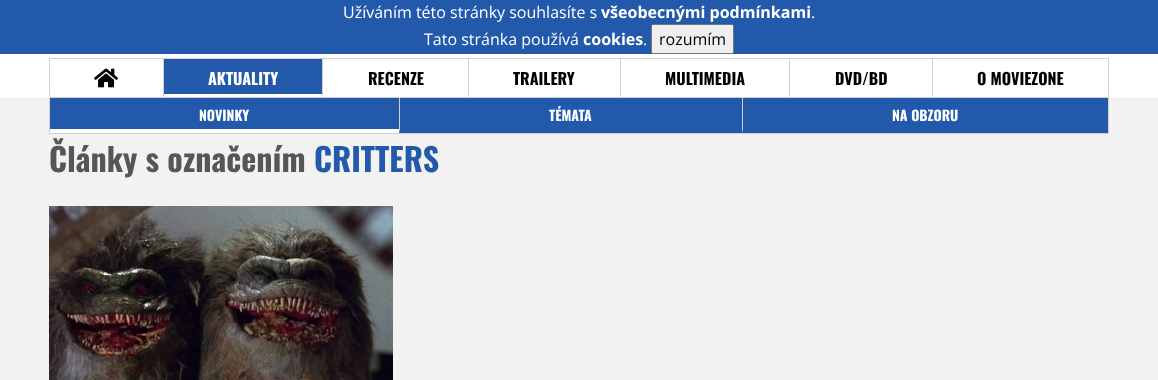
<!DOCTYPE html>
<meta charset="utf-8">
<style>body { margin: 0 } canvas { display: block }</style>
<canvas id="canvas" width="1158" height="380"></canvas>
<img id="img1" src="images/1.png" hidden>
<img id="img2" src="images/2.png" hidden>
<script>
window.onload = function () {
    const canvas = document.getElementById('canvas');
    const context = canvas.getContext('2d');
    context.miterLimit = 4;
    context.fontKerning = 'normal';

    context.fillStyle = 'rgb(242, 242, 242)';
    context.fillRect(0, 0, 1158, 380);
    context.fillStyle = 'rgb(35, 89, 171)';
    context.fillRect(0, 0, 1158, 54);
    context.fillStyle = 'rgb(239, 239, 239)';
    context.beginPath();
    context.roundRect(651.5, 24.5, 82, 29, 1.5);
    context.fill();
    context.strokeStyle = 'rgb(118, 118, 118)';
    context.stroke();
    context.fillStyle = 'rgb(255, 255, 255)';
    context.fillRect(0, 54, 1158, 44);
    context.fillStyle = 'rgb(209, 209, 209)';
    context.fillRect(49, 58, 1060, 1);
    context.fillRect(1108, 58, 1, 76);
    context.fillRect(49, 97, 1060, 1);
    context.beginPath();
    context.moveTo(49, 97);
    context.lineTo(49, 59);
    context.lineTo(50, 59);
    context.lineTo(50, 94);
    context.closePath();
    context.fill();
    context.drawImage(document.getElementById('img1'), 94, 68, 24, 20);
    context.fillStyle = 'rgb(35, 89, 171)';
    context.fillRect(163, 59, 159, 38);
    context.fillStyle = 'rgb(255, 255, 255)';
    context.beginPath();
    context.moveTo(322, 97);
    context.lineTo(163, 97);
    context.lineTo(164, 94);
    context.lineTo(322, 94);
    context.closePath();
    context.fill();
    context.fillStyle = 'rgb(209, 209, 209)';
    context.beginPath();
    context.moveTo(163, 97);
    context.lineTo(163, 59);
    context.lineTo(164, 59);
    context.lineTo(164, 94);
    context.closePath();
    context.fill();
    context.beginPath();
    context.moveTo(322, 97);
    context.lineTo(322, 59);
    context.lineTo(323, 59);
    context.lineTo(323, 94);
    context.closePath();
    context.fill();
    context.beginPath();
    context.moveTo(468, 97);
    context.lineTo(468, 59);
    context.lineTo(469, 59);
    context.lineTo(469, 94);
    context.closePath();
    context.fill();
    context.beginPath();
    context.moveTo(620, 97);
    context.lineTo(620, 59);
    context.lineTo(621, 59);
    context.lineTo(621, 94);
    context.closePath();
    context.fill();
    context.beginPath();
    context.moveTo(789, 97);
    context.lineTo(789, 59);
    context.lineTo(790, 59);
    context.lineTo(790, 94);
    context.closePath();
    context.fill();
    context.beginPath();
    context.moveTo(932, 97);
    context.lineTo(932, 59);
    context.lineTo(933, 59);
    context.lineTo(933, 94);
    context.closePath();
    context.fill();
    context.fillStyle = 'rgb(35, 89, 171)';
    context.fillRect(49, 98, 1059, 35);
    context.fillStyle = 'rgb(209, 209, 209)';
    context.fillRect(49, 133, 1060, 1);
    context.fillStyle = 'rgb(255, 255, 255)';
    context.beginPath();
    context.moveTo(399, 133);
    context.lineTo(49, 133);
    context.lineTo(50, 129);
    context.lineTo(399, 129);
    context.closePath();
    context.fill();
    context.fillStyle = 'rgb(209, 209, 209)';
    context.beginPath();
    context.moveTo(49, 133);
    context.lineTo(49, 98);
    context.lineTo(50, 98);
    context.lineTo(50, 129);
    context.closePath();
    context.fill();
    context.beginPath();
    context.moveTo(399, 133);
    context.lineTo(399, 98);
    context.lineTo(400, 98);
    context.lineTo(400, 129);
    context.closePath();
    context.fill();
    context.beginPath();
    context.moveTo(742, 133);
    context.lineTo(742, 98);
    context.lineTo(743, 98);
    context.lineTo(743, 129);
    context.closePath();
    context.fill();
    context.drawImage(document.getElementById('img2'), 49, 206, 344, 174);
    context.font = '16px Open Sans';
    context.fillStyle = 'rgb(255, 255, 255)';
    context.fillText('Užíváním této stránky souhlasíte s', 343, 18);
    context.font = 'bold 16px Open Sans';
    context.fillText('všeobecnými podmínkami', 601, 18);
    context.font = '16px Open Sans';
    context.fillText('.', 811, 18);
    context.fillText('Tato stránka používá', 424, 45);
    context.font = 'bold 16px Open Sans';
    context.fillText('cookies', 583, 45);
    context.font = '16px Open Sans';
    context.fillText('.', 643, 45);
    context.fillStyle = 'rgb(0, 0, 0)';
    context.fillText('rozumím', 659, 45);
    context.font = 'bold 16px Oswald';
    context.fillStyle = 'rgb(255, 255, 255)';
    context.fillText('AKTUALITY', 208, 85);
    context.fillStyle = 'rgb(0, 0, 0)';
    context.fillText('RECENZE', 368, 85);
    context.fillText('TRAILERY', 513, 85);
    context.fillText('MULTIMEDIA', 665, 85);
    context.fillText('DVD/BD', 835, 85);
    context.fillText('O MOVIEZONE', 977, 85);
    context.font = 'bold 14px Oswald';
    context.fillStyle = 'rgb(255, 255, 255)';
    context.fillText('NOVINKY', 199, 121);
    context.fillText('TÉMATA', 549, 121);
    context.fillText('NA OBZORU', 892, 121);
    context.font = 'bold 32px Oswald';
    context.fillStyle = 'rgb(86, 86, 86)';
    context.fillText('Články s označením', 49, 172);
    context.fillStyle = 'rgb(35, 89, 171)';
    context.fillText('CRITTERS', 314, 172);
};
</script>
